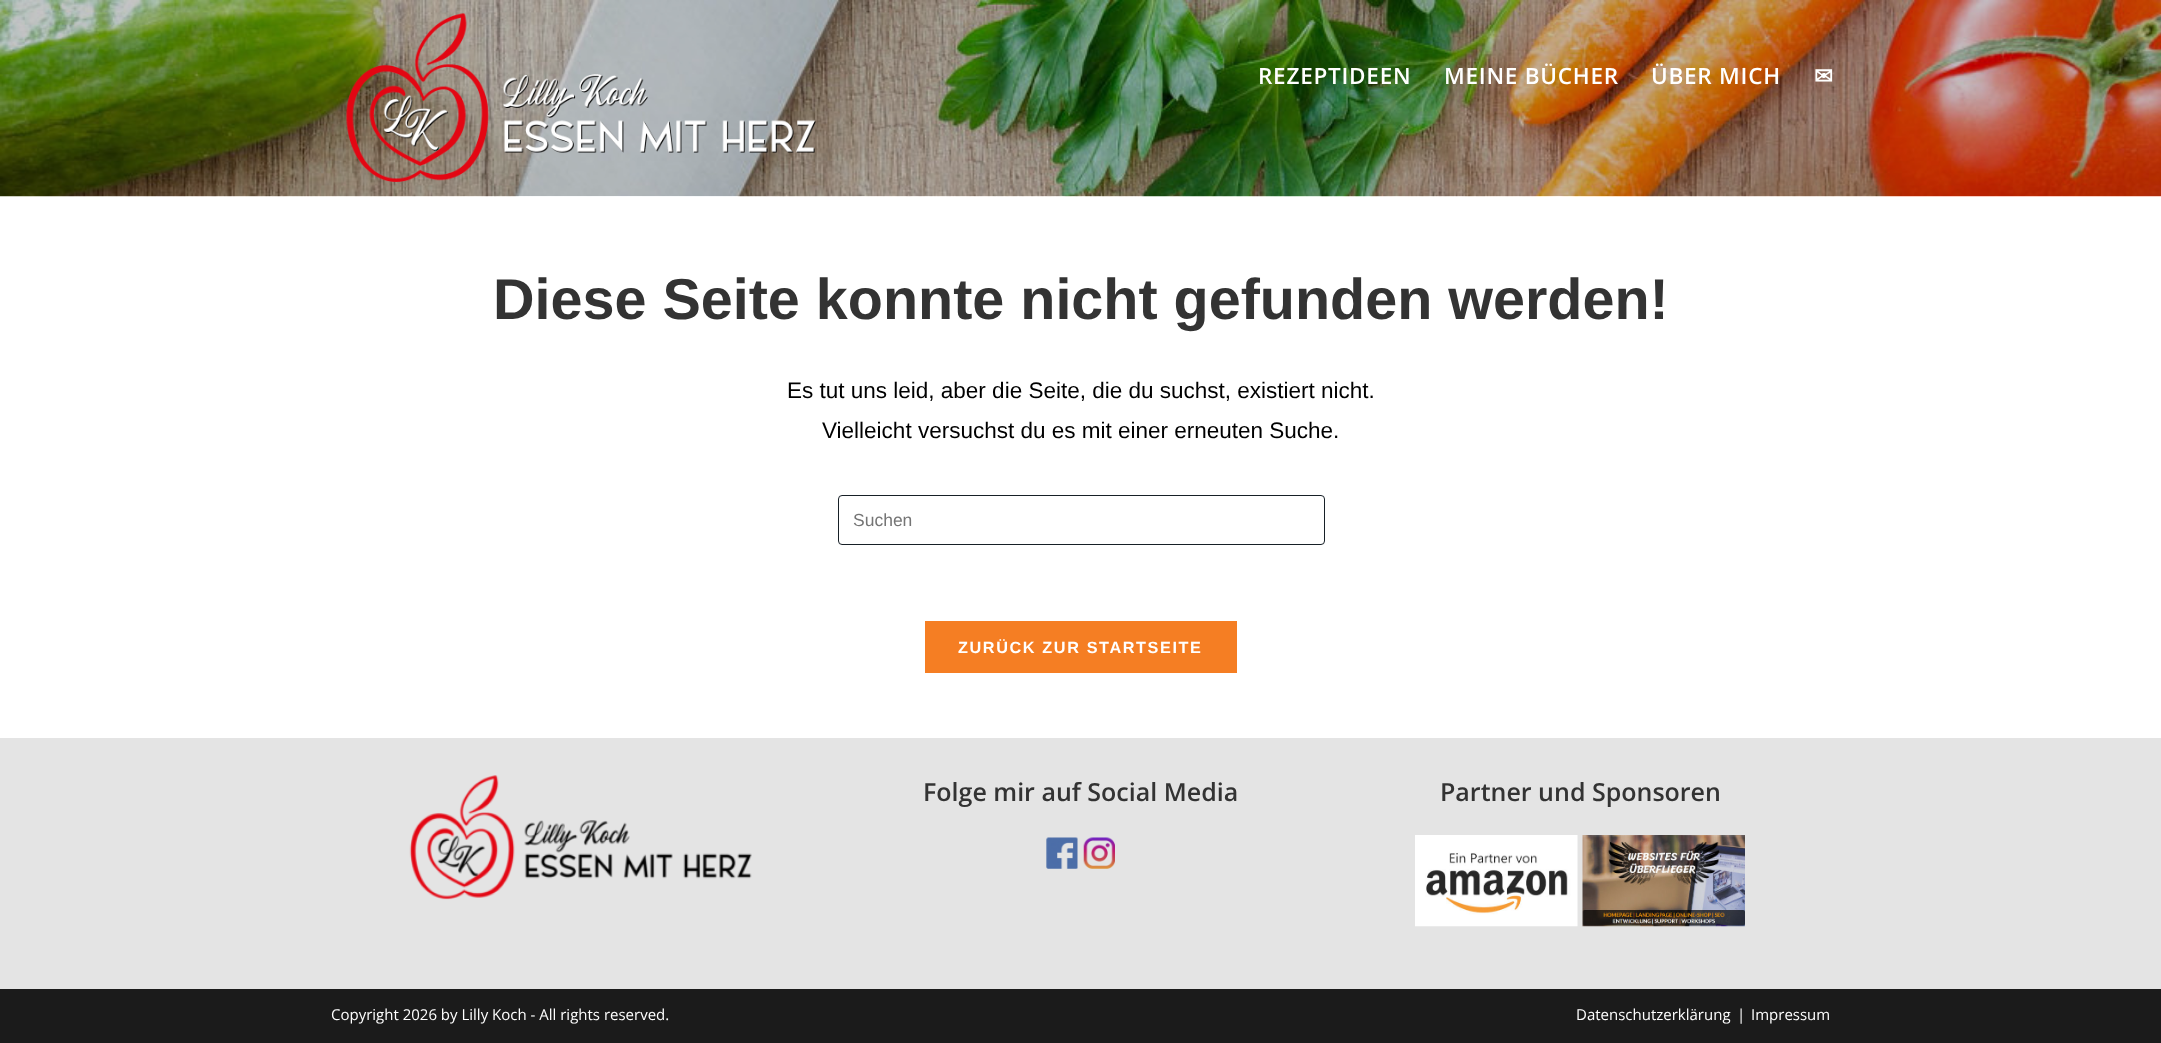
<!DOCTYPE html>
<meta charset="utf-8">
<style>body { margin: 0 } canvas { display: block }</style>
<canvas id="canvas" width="2161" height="1043"></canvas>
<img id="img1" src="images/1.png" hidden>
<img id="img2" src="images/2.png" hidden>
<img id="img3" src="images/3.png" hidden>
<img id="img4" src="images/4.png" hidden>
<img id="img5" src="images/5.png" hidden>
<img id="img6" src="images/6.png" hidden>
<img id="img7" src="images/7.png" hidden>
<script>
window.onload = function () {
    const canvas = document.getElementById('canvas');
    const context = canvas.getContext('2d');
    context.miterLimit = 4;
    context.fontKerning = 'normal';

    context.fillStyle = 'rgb(255, 255, 255)';
    context.fillRect(0, 0, 2161, 1043);
    context.drawImage(document.getElementById('img1'), 0, 0, 2161, 197);
    context.drawImage(document.getElementById('img2'), 346, 13, 470, 169);
    context.beginPath();
    context.roundRect(838.5, 495.5, 486, 49, 3.5);
    context.strokeStyle = 'rgb(23, 32, 39)';
    context.stroke();
    context.fillStyle = 'rgb(245, 126, 35)';
    context.fillRect(925, 621, 312, 52);
    context.fillStyle = 'rgb(228, 228, 228)';
    context.fillRect(0, 738, 2161, 251);
    context.drawImage(document.getElementById('img3'), 409, 775, 343, 125);
    context.drawImage(document.getElementById('img4'), 1046, 837, 32, 32);
    context.drawImage(document.getElementById('img5'), 1083, 837, 32, 32);
    context.drawImage(document.getElementById('img6'), 1415, 835, 163, 92);
    context.drawImage(document.getElementById('img7'), 1582, 835, 163, 92);
    context.fillStyle = 'rgb(27, 27, 27)';
    context.fillRect(0, 989, 2161, 54);
    context.letterSpacing = '0.75px';
    context.font = '600 22.5px Open Sans';
    context.fillStyle = 'rgb(255, 255, 255)';
    context.fillText('REZEPTIDEEN', 1258, 84);
    context.fillText('MEINE BÜCHER', 1444, 84);
    context.fillText('ÜBER MICH', 1651, 84);
    context.font = 'bold 22.5px DejaVu Sans';
    context.fillText('✉', 1814, 84);
    context.letterSpacing = '0px';
    context.font = 'bold 57.5px Liberation Sans';
    context.fillStyle = 'rgb(51, 51, 51)';
    context.fillText('Diese Seite konnte nicht gefunden werden!', 493, 319);
    context.font = '22.5px Liberation Sans';
    context.fillStyle = 'rgb(0, 0, 0)';
    context.fillText('Es tut uns leid, aber die Seite, die du suchst, existiert nicht.', 787, 398);
    context.fillText('Vielleicht versuchst du es mit einer erneuten Suche.', 822, 438);
    context.font = '17.5px Liberation Sans';
    context.fillStyle = 'rgb(117, 117, 117)';
    context.fillText('Suchen', 853, 526);
    context.letterSpacing = '1.6px';
    context.font = 'bold 16.25px Liberation Sans';
    context.fillStyle = 'rgb(255, 255, 255)';
    context.fillText('ZURÜCK ZUR STARTSEITE', 958, 653);
    context.letterSpacing = '0px';
    context.font = '600 25px Open Sans';
    context.fillStyle = 'rgb(51, 51, 51)';
    context.fillText('Folge mir auf Social Media', 923, 801);
    context.fillText('Partner und Sponsoren', 1440, 801);
    context.font = '15px Open Sans';
    context.fillStyle = 'rgb(255, 255, 255)';
    context.fillText('Copyright 2026 by Lilly Koch - All rights reserved.', 331, 1020);
    context.fillText('Datenschutzerklärung', 1576, 1020);
    context.fillText('|', 1737, 1020);
    context.fillText('Impressum', 1751, 1020);
};
</script>
